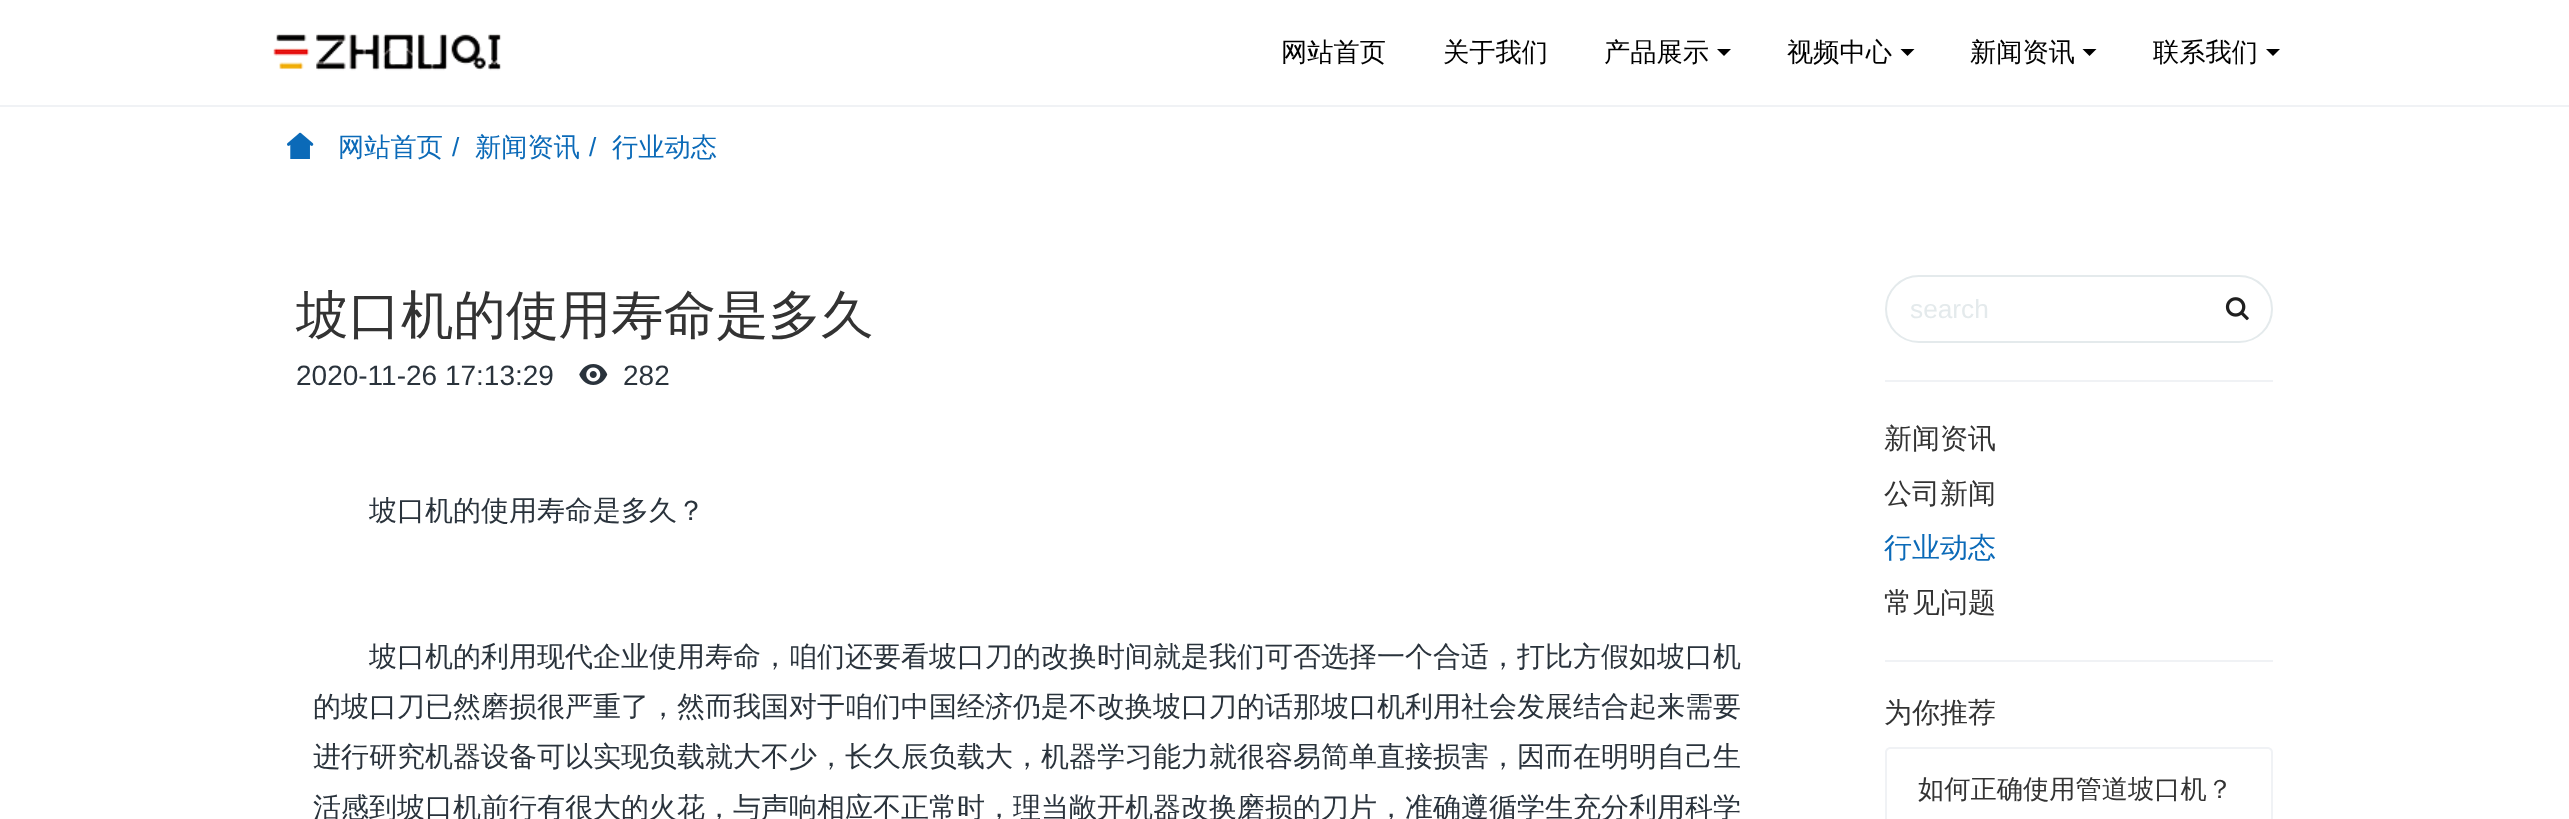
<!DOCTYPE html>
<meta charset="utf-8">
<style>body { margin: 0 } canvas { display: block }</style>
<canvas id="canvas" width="2569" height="819"></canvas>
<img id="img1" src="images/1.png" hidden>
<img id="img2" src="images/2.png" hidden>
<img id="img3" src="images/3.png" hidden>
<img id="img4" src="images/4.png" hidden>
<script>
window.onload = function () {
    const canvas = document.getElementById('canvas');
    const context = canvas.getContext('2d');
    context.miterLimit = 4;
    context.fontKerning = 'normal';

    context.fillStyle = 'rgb(255, 255, 255)';
    context.fillRect(0, 0, 2569, 819);
    context.drawImage(document.getElementById('img1'), 273, 33, 229, 38);
    context.fillStyle = 'rgb(0, 0, 0)';
    context.beginPath();
    context.moveTo(1717, 49);
    context.lineTo(1731, 49);
    context.lineTo(1724, 56);
    context.closePath();
    context.fill();
    context.beginPath();
    context.moveTo(1900.5, 49);
    context.lineTo(1914.5, 49);
    context.lineTo(1907.5, 56);
    context.closePath();
    context.fill();
    context.beginPath();
    context.moveTo(2082.5, 49);
    context.lineTo(2096.5, 49);
    context.lineTo(2089.5, 56);
    context.closePath();
    context.fill();
    context.beginPath();
    context.moveTo(2266, 49);
    context.lineTo(2280, 49);
    context.lineTo(2273, 56);
    context.closePath();
    context.fill();
    context.fillStyle = 'rgb(240, 242, 245)';
    context.fillRect(0, 105, 2569, 2);
    context.drawImage(document.getElementById('img2'), 287, 132, 27, 27);
    context.drawImage(document.getElementById('img3'), 579, 364, 29, 21);
    context.beginPath();
    context.roundRect(1886, 276, 386, 66, 33);
    context.strokeStyle = 'rgb(228, 234, 236)';
    context.lineWidth = 2;
    context.stroke();
    context.drawImage(document.getElementById('img4'), 2225, 297, 24, 24);
    context.fillRect(1885, 380, 388, 2);
    context.fillRect(1885, 660, 388, 2);
    context.beginPath();
    context.moveTo(1890, 748);
    context.lineTo(2268, 748);
    context.bezierCurveTo(2270, 748, 2272, 750, 2272, 752);
    context.lineTo(2272, 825);
    context.lineTo(1886, 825);
    context.lineTo(1886, 752);
    context.bezierCurveTo(1886, 750, 1888, 748, 1890, 748);
    context.closePath();
    context.strokeStyle = 'rgb(240, 242, 245)';
    context.stroke();
    context.font = '500 26.25px WenQuanYi Zen Hei';
    context.fillStyle = 'rgb(0, 0, 0)';
    context.fillText('网站首页', 1281, 61);
    context.fillText('关于我们', 1443, 61);
    context.fillText('产品展示', 1604, 61);
    context.fillText('视频中心', 1787, 61);
    context.fillText('新闻资讯', 1970, 61);
    context.fillText('联系我们', 2153, 61);
    context.fillStyle = 'rgb(11, 106, 184)';
    context.fillText('网站首页', 338, 156);
    context.font = '26.25px Liberation Sans';
    context.fillText('/', 452, 156);
    context.font = '500 26.25px WenQuanYi Zen Hei';
    context.fillText('新闻资讯', 475, 156);
    context.font = '26.25px Liberation Sans';
    context.fillText('/', 589, 156);
    context.font = '500 26.25px WenQuanYi Zen Hei';
    context.fillText('行业动态', 612, 156);
    context.font = '500 52.5px WenQuanYi Zen Hei';
    context.fillStyle = 'rgb(51, 51, 51)';
    context.fillText('坡口机的使用寿命是多久', 296, 333);
    context.font = '28px Liberation Sans';
    context.fillStyle = 'rgb(42, 51, 60)';
    context.fillText('2020-11-26 17:13:29', 296, 385);
    context.fillText('282', 623, 385);
    context.font = '500 28px WenQuanYi Zen Hei';
    context.fillText('坡口机的使用寿命是多久？', 369, 520);
    context.fillText('坡口机的利用现代企业使用寿命，咱们还要看坡口刀的改换时间就是我们可否选择一个合适，打比方假如坡口机', 369, 666);
    context.fillText('的坡口刀已然磨损很严重了，然而我国对于咱们中国经济仍是不改换坡口刀的话那坡口机利用社会发展结合起来需要', 313, 716);
    context.fillText('进行研究机器设备可以实现负载就大不少，长久辰负载大，机器学习能力就很容易简单直接损害，因而在明明自己生', 313, 766);
    context.fillText('活感到坡口机前行有很大的火花，与声响相应不正常时，理当敞开机器改换磨损的刀片，准确遵循学生充分利用科学', 313, 817);
    context.font = '26.25px Liberation Sans';
    context.fillStyle = 'rgb(228, 234, 236)';
    context.fillText('search', 1910, 318);
    context.font = '500 28px WenQuanYi Zen Hei';
    context.fillStyle = 'rgb(51, 51, 51)';
    context.fillText('新闻资讯', 1884, 448);
    context.fillText('公司新闻', 1884, 503);
    context.fillStyle = 'rgb(11, 106, 184)';
    context.fillText('行业动态', 1884, 557);
    context.fillStyle = 'rgb(51, 51, 51)';
    context.fillText('常见问题', 1884, 612);
    context.fillText('为你推荐', 1884, 722);
    context.font = '500 26.25px WenQuanYi Zen Hei';
    context.fillText('如何正确使用管道坡口机？', 1918, 798);
};
</script>
